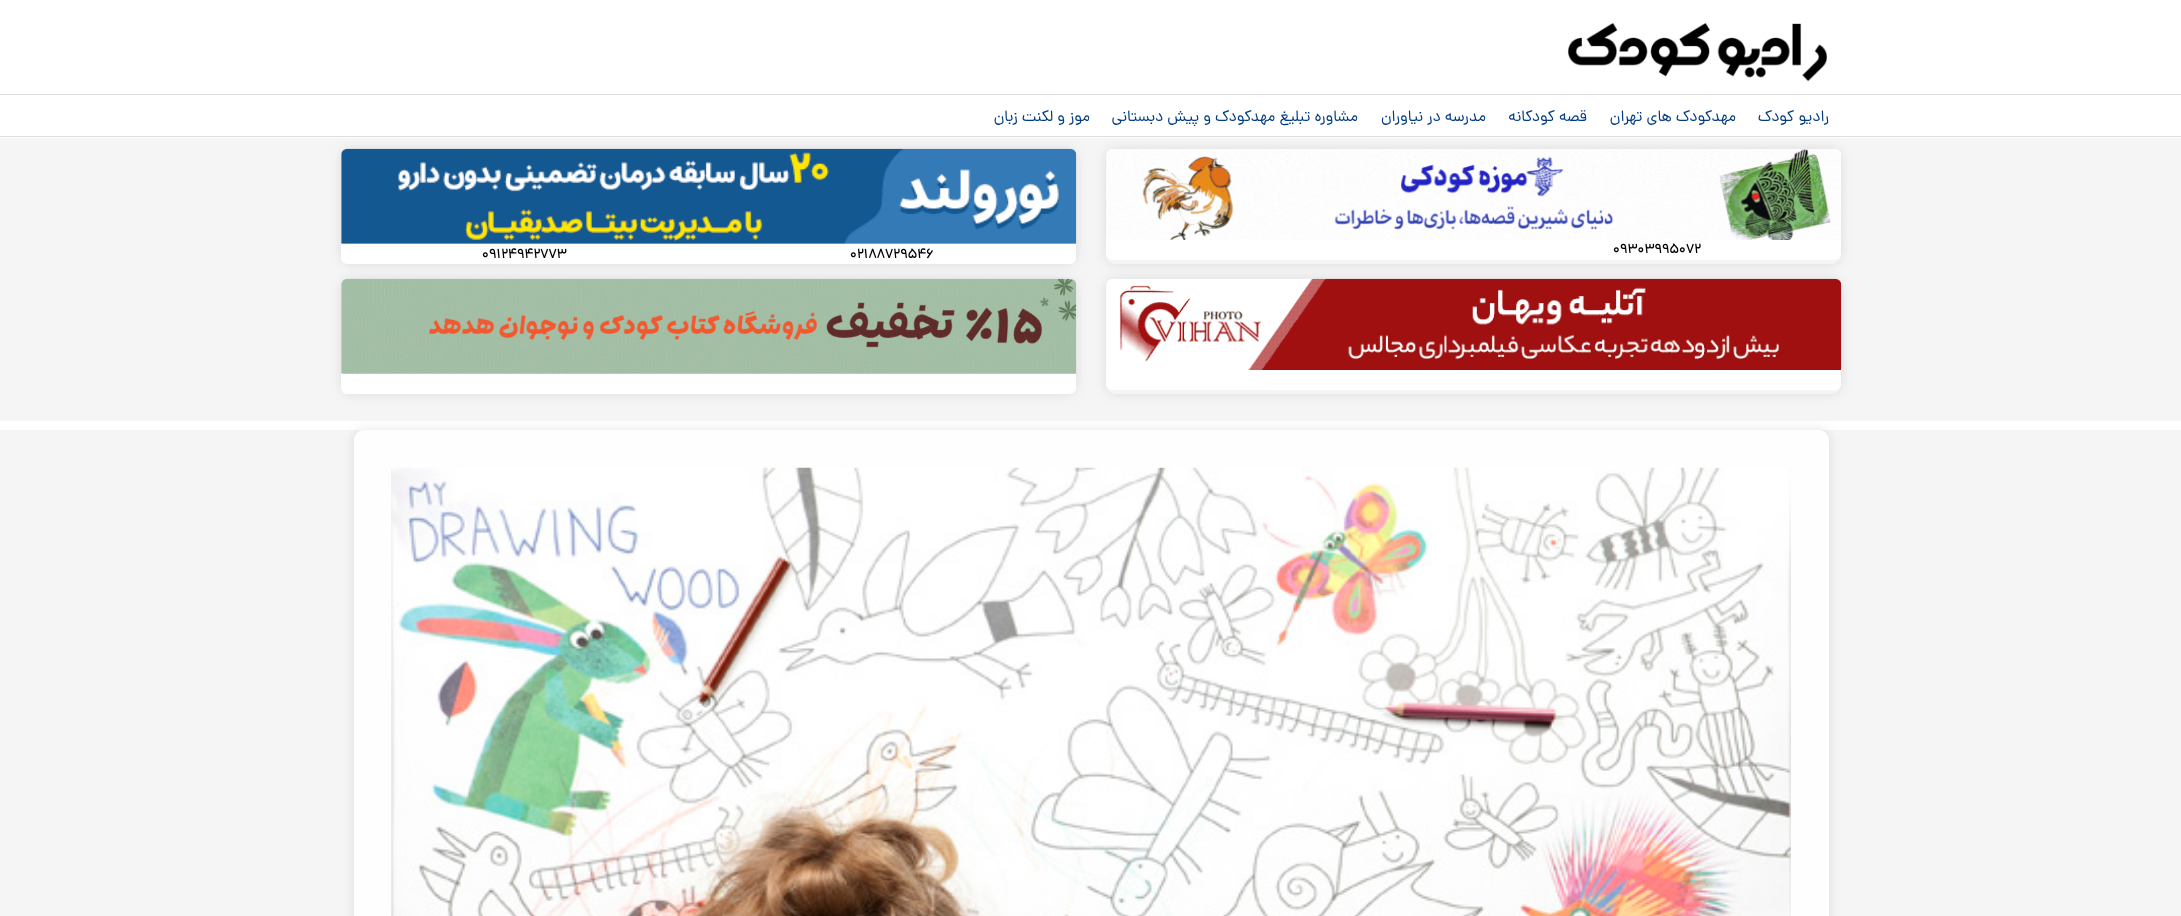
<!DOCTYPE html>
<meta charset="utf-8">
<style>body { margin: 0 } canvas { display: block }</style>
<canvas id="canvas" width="2181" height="916"></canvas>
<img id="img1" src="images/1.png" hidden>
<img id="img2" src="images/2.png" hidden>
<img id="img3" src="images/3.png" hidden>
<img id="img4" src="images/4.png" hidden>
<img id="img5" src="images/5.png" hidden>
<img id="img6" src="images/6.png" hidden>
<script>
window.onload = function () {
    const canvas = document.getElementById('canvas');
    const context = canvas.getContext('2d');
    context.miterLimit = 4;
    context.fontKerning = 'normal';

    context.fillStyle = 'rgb(255, 255, 255)';
    context.fillRect(0, 0, 2181, 916);
    context.drawImage(document.getElementById('img1'), 1567, 22, 261, 60);
    context.fillStyle = 'rgb(221, 221, 221)';
    context.fillRect(0, 94, 2181, 1);
    context.fillStyle = 'rgb(245, 245, 245)';
    context.fillRect(0, 138, 2181, 283);
    context.save();
    context.beginPath();
    context.moveTo(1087, 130);
    context.lineTo(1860, 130);
    context.lineTo(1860, 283);
    context.lineTo(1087, 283);
    context.closePath();
    context.moveTo(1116, 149);
    context.lineTo(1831, 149);
    context.bezierCurveTo(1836.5, 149, 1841, 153.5, 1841, 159);
    context.lineTo(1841, 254);
    context.bezierCurveTo(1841, 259.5, 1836.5, 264, 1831, 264);
    context.lineTo(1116, 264);
    context.bezierCurveTo(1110.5, 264, 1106, 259.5, 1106, 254);
    context.lineTo(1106, 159);
    context.bezierCurveTo(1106, 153.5, 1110.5, 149, 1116, 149);
    context.closePath();
    context.clip('evenodd');
    context.fillStyle = 'rgba(0, 0, 0, 0.1)';
    context.filter = 'blur(6px)';
    context.beginPath();
    context.roundRect(1106, 149, 735, 115, 10);
    context.fill();
    context.filter = 'none';
    context.restore();
    context.fillStyle = 'rgba(0, 0, 0, 0.1)';
    context.filter = 'blur(6px)';
    context.beginPath();
    context.roundRect(341, 149, 735, 115, 10);
    context.fill();
    context.filter = 'none';
    context.fillStyle = 'rgb(221, 221, 221)';
    context.fillRect(0, 136, 2181, 1);
    context.drawImage(document.getElementById('img2'), 1106, 149, 735, 91);
    context.fillStyle = 'rgb(255, 255, 255)';
    context.beginPath();
    context.roundRect(1106, 240, 735, 20, [0, 0, 6, 6]);
    context.fill();
    context.drawImage(document.getElementById('img3'), 341, 148, 736, 96);
    context.beginPath();
    context.roundRect(341, 244, 735, 20, [0, 0, 6, 6]);
    context.fill();
    context.save();
    context.beginPath();
    context.moveTo(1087, 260);
    context.lineTo(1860, 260);
    context.lineTo(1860, 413);
    context.lineTo(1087, 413);
    context.closePath();
    context.moveTo(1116, 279);
    context.lineTo(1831, 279);
    context.bezierCurveTo(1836.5, 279, 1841, 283.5, 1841, 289);
    context.lineTo(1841, 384);
    context.bezierCurveTo(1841, 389.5, 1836.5, 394, 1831, 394);
    context.lineTo(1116, 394);
    context.bezierCurveTo(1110.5, 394, 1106, 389.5, 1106, 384);
    context.lineTo(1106, 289);
    context.bezierCurveTo(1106, 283.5, 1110.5, 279, 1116, 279);
    context.closePath();
    context.clip('evenodd');
    context.fillStyle = 'rgba(0, 0, 0, 0.1)';
    context.filter = 'blur(6px)';
    context.beginPath();
    context.roundRect(1106, 279, 735, 115, 10);
    context.fill();
    context.filter = 'none';
    context.restore();
    context.drawImage(document.getElementById('img4'), 1106, 278, 736, 92);
    context.beginPath();
    context.roundRect(1106, 370, 735, 20, [0, 0, 6, 6]);
    context.fill();
    context.fillStyle = 'rgba(0, 0, 0, 0.1)';
    context.filter = 'blur(6px)';
    context.beginPath();
    context.roundRect(341, 279, 735, 115, 10);
    context.fill();
    context.filter = 'none';
    context.drawImage(document.getElementById('img5'), 341, 278, 736, 96);
    context.fillStyle = 'rgb(255, 255, 255)';
    context.beginPath();
    context.roundRect(341, 374, 735, 20, [0, 0, 6, 6]);
    context.fill();
    context.fillStyle = 'rgb(245, 245, 245)';
    context.fillRect(0, 430, 2181, 486);
    context.fillStyle = 'rgba(0, 0, 0, 0.1)';
    context.filter = 'blur(6px)';
    context.beginPath();
    context.roundRect(354, 430, 1475, 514, 10);
    context.fill();
    context.filter = 'none';
    context.fillStyle = 'rgb(254, 254, 254)';
    context.beginPath();
    context.roundRect(354, 430, 1475, 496, 10);
    context.fill();
    context.fillStyle = 'rgb(241, 241, 241)';
    context.fillRect(391, 468, 1, 448);
    context.drawImage(document.getElementById('img6'), 391, 467, 1400, 449);
    context.direction = 'rtl';
    context.font = '15.75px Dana';
    context.fillStyle = 'rgb(1, 59, 130)';
    context.fillText('رادیو کودک', 1829, 121);
    context.fillText('مهدکودک های تهران', 1736, 121);
    context.fillText('قصه کودکانه', 1587, 121);
    context.fillText('مدرسه در نیاوران', 1486, 121);
    context.fillText('مشاوره تبلیغ مهدکودک و پیش دبستانی', 1358, 121);
    context.fillText('موز و لکنت زبان', 1090, 121);
    context.direction = 'ltr';
    context.font = '500 14px Dana';
    context.fillStyle = 'rgb(0, 0, 0)';
    context.fillText('۰۹۳۰۳۹۹۵۰۷۲', 1613, 253);
    context.fillText('۰۲۱۸۸۷۲۹۵۴۶', 850, 258);
    context.fillText('۰۹۱۲۴۹۴۲۷۷۳', 482, 258);
};
</script>
